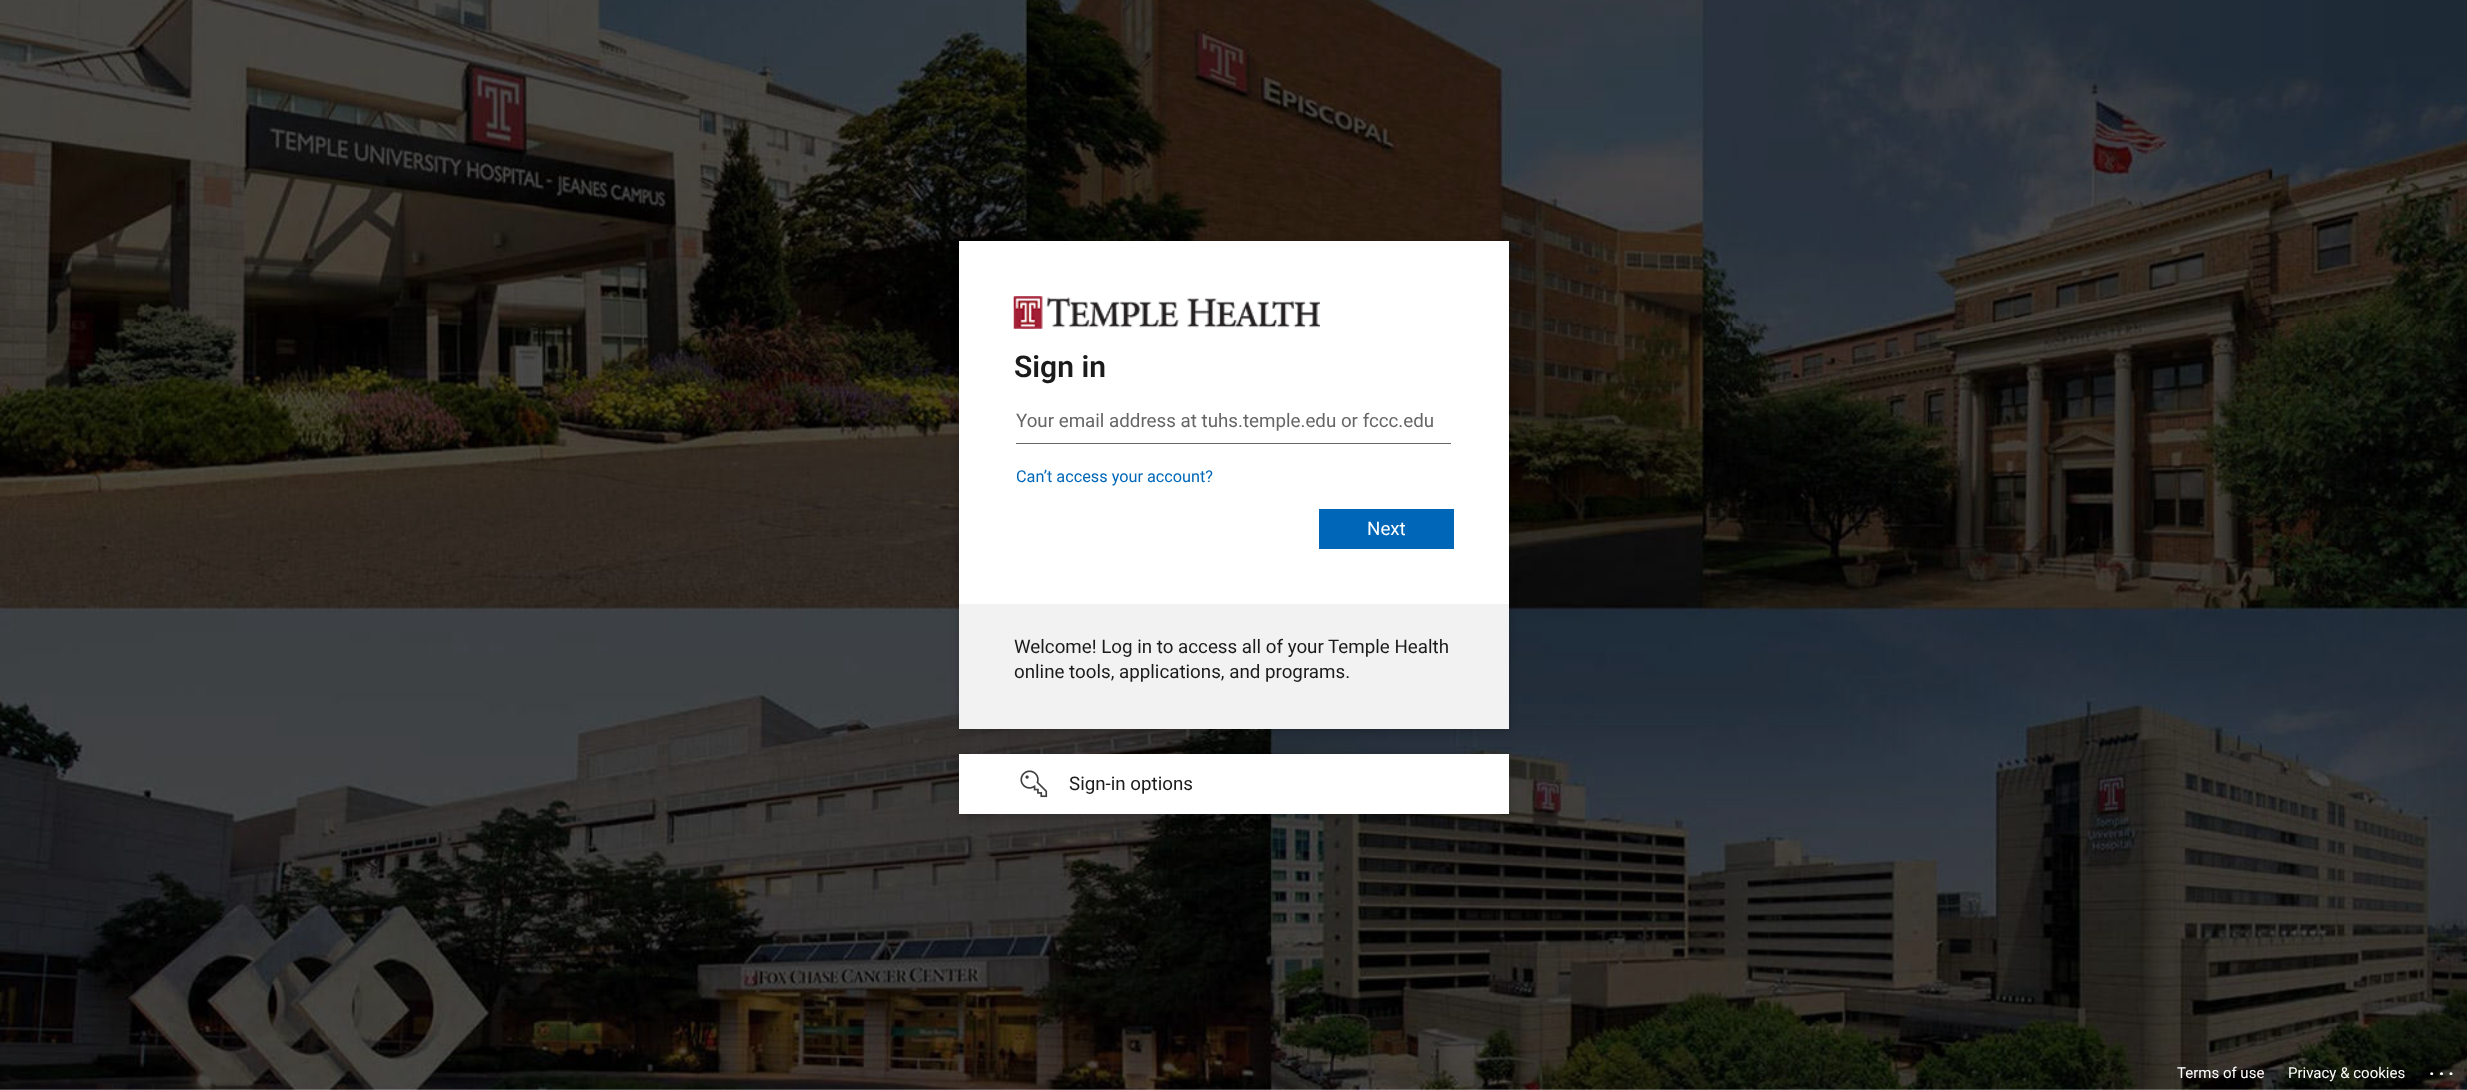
<!DOCTYPE html>
<meta charset="utf-8">
<style>body { margin: 0 } canvas { display: block }</style>
<canvas id="canvas" width="2467" height="1090"></canvas>
<img id="img1" src="images/1.png" hidden>
<img id="img2" src="images/2.png" hidden>
<img id="img3" src="images/3.png" hidden>
<script>
window.onload = function () {
    const canvas = document.getElementById('canvas');
    const context = canvas.getContext('2d');
    context.miterLimit = 4;
    context.fontKerning = 'normal';

    context.fillStyle = 'rgb(255, 255, 255)';
    context.fillRect(0, 0, 2467, 1090);
    context.drawImage(document.getElementById('img1'), 0, 0, 2467, 1090);
    context.fillStyle = 'rgba(0, 0, 0, 0.2)';
    context.filter = 'blur(4px)';
    context.beginPath();
    context.rect(959, 244, 550, 487);
    context.fill();
    context.filter = 'none';
    context.fillStyle = 'rgb(255, 255, 255)';
    context.fillRect(959, 241, 550, 363);
    context.drawImage(document.getElementById('img2'), 1013, 296, 307, 33);
    context.fillStyle = 'rgb(102, 102, 102)';
    context.fillRect(1016, 443, 435, 1);
    context.fillStyle = 'rgb(0, 103, 184)';
    context.fillRect(1319, 509, 135, 40);
    context.fillStyle = 'rgb(242, 242, 242)';
    context.fillRect(959, 604, 550, 125);
    context.fillStyle = 'rgba(0, 0, 0, 0.2)';
    context.filter = 'blur(4px)';
    context.beginPath();
    context.rect(959, 756, 550, 60);
    context.fill();
    context.filter = 'none';
    context.fillStyle = 'rgb(255, 255, 255)';
    context.fillRect(959, 754, 550, 60);
    context.drawImage(document.getElementById('img3'), 1020, 770, 28, 28);
    context.font = '600 30px Roboto';
    context.fillStyle = 'rgb(27, 27, 27)';
    context.fillText('Sign in', 1014, 377);
    context.font = '18.75px Roboto';
    context.fillStyle = 'rgb(102, 102, 102)';
    context.fillText('Your email address at tuhs.temple.edu or fccc.edu', 1016, 427);
    context.font = '16.25px Roboto';
    context.fillStyle = 'rgb(0, 103, 184)';
    context.fillText('Can’t access your account?', 1016, 482);
    context.font = '18.75px Roboto';
    context.fillStyle = 'rgb(255, 255, 255)';
    context.fillText('Next', 1367, 535);
    context.fillStyle = 'rgb(27, 27, 27)';
    context.fillText('Welcome! Log in to access all of your Temple Health', 1014, 653);
    context.fillText('online tools, applications, and programs.', 1014, 678);
    context.fillText('Sign-in options', 1069, 790);
    context.font = '15px Roboto';
    context.fillStyle = 'rgb(255, 255, 255)';
    context.fillText('Terms of use', 2177, 1078);
    context.fillText('Privacy & cookies', 2288, 1078);
    context.letterSpacing = '4px';
    context.font = '600 20px Roboto';
    context.fillText('...', 2429, 1075);
};
</script>
